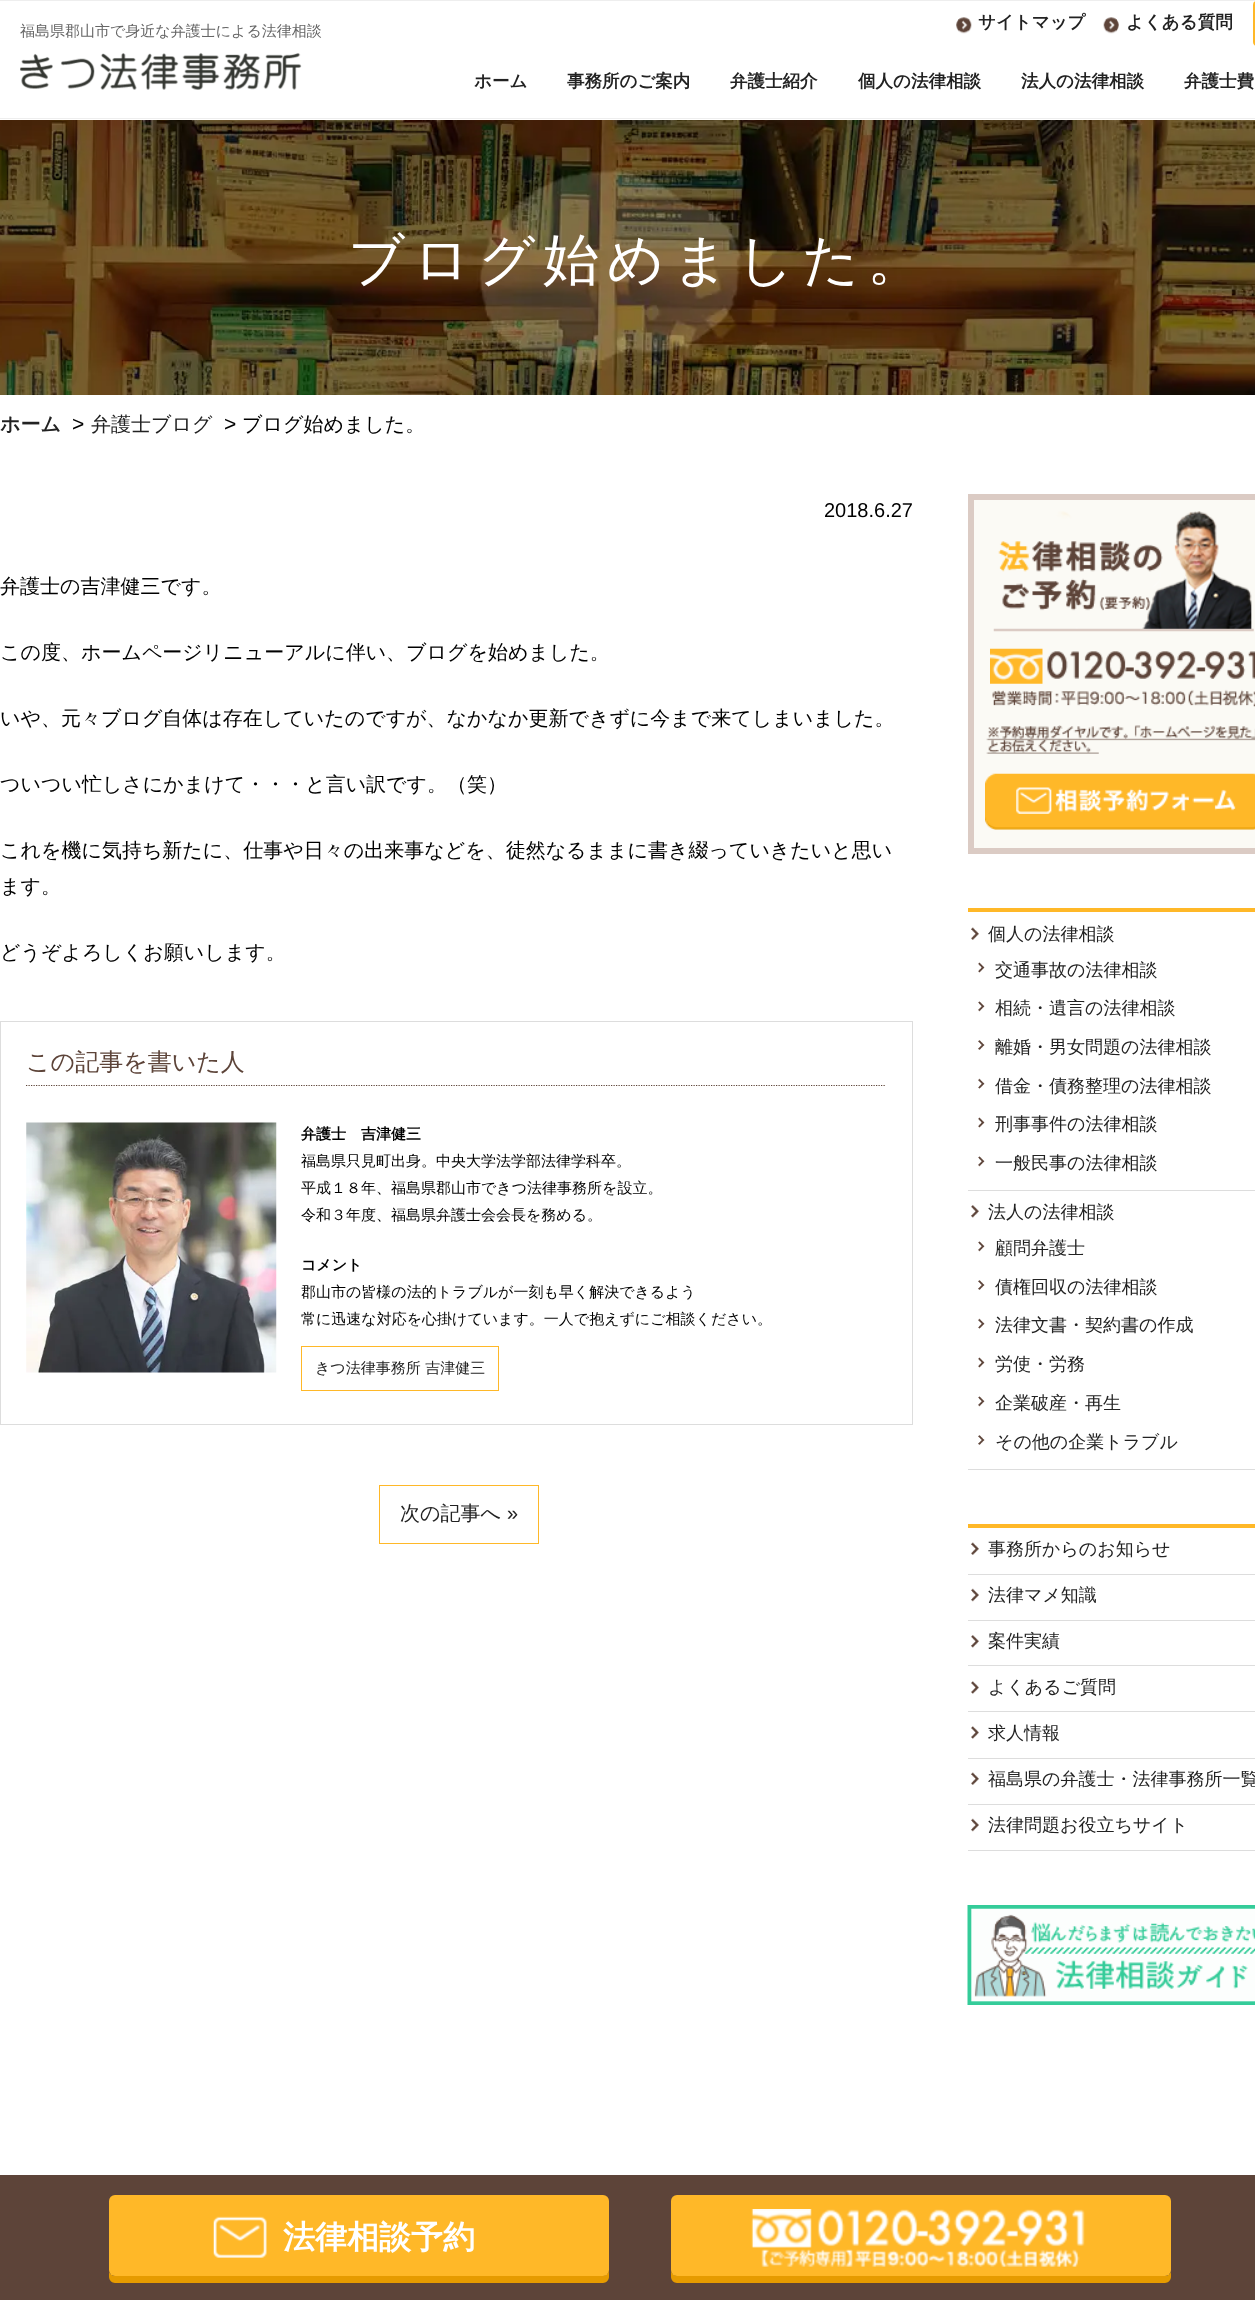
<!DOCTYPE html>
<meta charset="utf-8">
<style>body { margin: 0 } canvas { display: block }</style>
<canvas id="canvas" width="1255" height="2300"></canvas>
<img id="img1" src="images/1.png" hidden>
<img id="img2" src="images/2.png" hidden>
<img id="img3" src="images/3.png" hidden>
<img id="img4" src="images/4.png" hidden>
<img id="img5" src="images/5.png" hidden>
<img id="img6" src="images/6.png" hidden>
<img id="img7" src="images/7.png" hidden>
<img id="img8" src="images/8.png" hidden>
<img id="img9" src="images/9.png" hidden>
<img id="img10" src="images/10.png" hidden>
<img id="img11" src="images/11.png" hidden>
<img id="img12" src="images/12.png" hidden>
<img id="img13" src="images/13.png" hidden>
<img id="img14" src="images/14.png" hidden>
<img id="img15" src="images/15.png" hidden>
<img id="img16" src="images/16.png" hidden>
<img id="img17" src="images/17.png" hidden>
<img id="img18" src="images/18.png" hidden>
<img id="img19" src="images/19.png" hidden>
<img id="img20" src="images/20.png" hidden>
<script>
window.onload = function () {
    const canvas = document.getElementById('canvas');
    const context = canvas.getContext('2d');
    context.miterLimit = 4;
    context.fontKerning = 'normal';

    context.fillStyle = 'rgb(255, 255, 255)';
    context.fillRect(0, 0, 1255, 2300);
    context.fillStyle = 'rgb(238, 238, 238)';
    context.fillRect(0, 0, 1255, 1);
    context.fillRect(0, 118, 1255, 1);
    context.drawImage(document.getElementById('img1'), 20, 52, 282, 38);
    context.drawImage(document.getElementById('img2'), 956, 17, 16, 17);
    context.drawImage(document.getElementById('img3'), 1103, 17, 16, 17);
    context.fillStyle = 'rgb(255, 184, 40)';
    context.beginPath();
    context.roundRect(1253, 1, 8, 45, 6);
    context.fill();
    context.drawImage(document.getElementById('img4'), 0, 120, 1255, 275);
    context.strokeStyle = 'rgb(221, 221, 221)';
    context.strokeRect(0.5, 1021.5, 912, 403);
    context.beginPath();
    context.moveTo(26, 1085.5);
    context.lineTo(886, 1085.5);
    context.strokeStyle = 'rgb(93, 68, 57)';
    context.lineWidth = 1.2;
    context.setLineDash([1.25, 1.25]);
    context.stroke();
    context.drawImage(document.getElementById('img5'), 26, 1122, 251, 251);
    context.strokeStyle = 'rgb(255, 184, 40)';
    context.lineWidth = 1;
    context.setLineDash([]);
    context.strokeRect(301.5, 1346.5, 197, 44);
    context.strokeRect(379.5, 1485.5, 159, 58);
    context.fillStyle = 'rgb(251, 250, 245)';
    context.beginPath();
    context.rect(971, 497, 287, 354);
    context.fill();
    context.strokeStyle = 'rgb(219, 203, 196)';
    context.lineWidth = 6;
    context.stroke();
    context.drawImage(document.getElementById('img6'), 993, 511, 261, 121);
    context.drawImage(document.getElementById('img7'), 990, 648, 265, 59);
    context.drawImage(document.getElementById('img8'), 986, 725, 269, 29);
    context.drawImage(document.getElementById('img9'), 985, 773, 270, 57);
    context.fillStyle = 'rgb(255, 184, 40)';
    context.fillRect(968, 908, 287, 4);
    context.fillStyle = 'rgb(221, 221, 221)';
    context.fillRect(968, 1190, 287, 1);
    context.drawImage(document.getElementById('img10'), 971, 927, 8, 13);
    context.drawImage(document.getElementById('img11'), 978, 962, 7, 11);
    context.drawImage(document.getElementById('img12'), 978, 1001, 7, 11);
    context.drawImage(document.getElementById('img13'), 978, 1040, 7, 10);
    context.drawImage(document.getElementById('img14'), 978, 1078, 7, 11);
    context.drawImage(document.getElementById('img11'), 978, 1117, 7, 11);
    context.drawImage(document.getElementById('img12'), 978, 1156, 7, 11);
    context.fillRect(968, 1469, 287, 1);
    context.drawImage(document.getElementById('img15'), 971, 1205, 8, 13);
    context.drawImage(document.getElementById('img12'), 978, 1241, 7, 11);
    context.drawImage(document.getElementById('img13'), 978, 1280, 7, 10);
    context.drawImage(document.getElementById('img14'), 978, 1318, 7, 11);
    context.drawImage(document.getElementById('img11'), 978, 1357, 7, 11);
    context.drawImage(document.getElementById('img12'), 978, 1396, 7, 11);
    context.drawImage(document.getElementById('img13'), 978, 1435, 7, 10);
    context.fillStyle = 'rgb(255, 184, 40)';
    context.fillRect(968, 1524, 287, 4);
    context.fillStyle = 'rgb(221, 221, 221)';
    context.fillRect(968, 1574, 287, 1);
    context.drawImage(document.getElementById('img10'), 971, 1542, 8, 13);
    context.fillRect(968, 1620, 287, 1);
    context.drawImage(document.getElementById('img16'), 971, 1588, 8, 14);
    context.fillRect(968, 1665, 287, 1);
    context.drawImage(document.getElementById('img15'), 971, 1635, 8, 13);
    context.fillRect(968, 1711, 287, 1);
    context.drawImage(document.getElementById('img17'), 971, 1681, 8, 13);
    context.fillRect(968, 1758, 287, 1);
    context.drawImage(document.getElementById('img17'), 971, 1726, 8, 13);
    context.fillRect(968, 1804, 287, 1);
    context.drawImage(document.getElementById('img10'), 971, 1772, 8, 13);
    context.fillRect(968, 1850, 287, 1);
    context.drawImage(document.getElementById('img16'), 971, 1818, 8, 14);
    context.drawImage(document.getElementById('img18'), 967, 1905, 288, 100);
    context.fillStyle = 'rgb(93, 68, 57)';
    context.fillRect(0, 2175, 1255, 125);
    context.fillStyle = 'rgb(230, 155, 0)';
    context.beginPath();
    context.moveTo(109, 2272);
    context.lineTo(109, 2277);
    context.bezierCurveTo(109, 2280, 112, 2283, 115, 2283);
    context.lineTo(603, 2283);
    context.bezierCurveTo(606, 2283, 609, 2280, 609, 2277);
    context.lineTo(609, 2205);
    context.lineTo(609, 2270);
    context.bezierCurveTo(609, 2273, 606, 2276, 602, 2276);
    context.lineTo(115, 2276);
    context.bezierCurveTo(112, 2276, 110, 2274, 109, 2272);
    context.closePath();
    context.fill();
    context.fillStyle = 'rgb(255, 184, 40)';
    context.beginPath();
    context.roundRect(109, 2195, 500, 81, 6);
    context.fill();
    context.drawImage(document.getElementById('img19'), 213, 2216, 54, 42);
    context.fillStyle = 'rgb(230, 155, 0)';
    context.beginPath();
    context.moveTo(671, 2205);
    context.lineTo(671, 2277);
    context.bezierCurveTo(671, 2280, 674, 2283, 677, 2283);
    context.lineTo(1165, 2283);
    context.bezierCurveTo(1168, 2283, 1171, 2280, 1171, 2277);
    context.lineTo(1171, 2272);
    context.bezierCurveTo(1170, 2274, 1168, 2276, 1165, 2276);
    context.lineTo(678, 2276);
    context.bezierCurveTo(674, 2276, 671, 2273, 671, 2270);
    context.closePath();
    context.fill();
    context.fillStyle = 'rgb(255, 184, 40)';
    context.beginPath();
    context.roundRect(671, 2195, 500, 81, 6);
    context.fill();
    context.drawImage(document.getElementById('img20'), 751, 2209, 334, 58);
    context.font = '500 15px WenQuanYi Zen Hei';
    context.fillStyle = 'rgb(102, 102, 102)';
    context.fillText('福島県郡山市で身近な弁護士による法律相談', 20, 36);
    context.font = 'bold 17.5px WenQuanYi Zen Hei';
    context.fillStyle = 'rgb(34, 34, 34)';
    context.fillText('サイトマップ', 978, 28);
    context.fillText('よくある質問', 1126, 28);
    context.fillText('ホーム', 474, 87);
    context.fillText('事務所のご案内', 567, 87);
    context.fillText('弁護士紹介', 730, 87);
    context.fillText('個人の法律相談', 858, 87);
    context.fillText('法人の法律相談', 1021, 87);
    context.fillText('弁護士費', 1184, 87);
    context.letterSpacing = '7.75px';
    context.font = '500 56px WenQuanYi Zen Hei';
    context.fillStyle = 'rgb(255, 255, 255)';
    context.fillText('ブログ始めました。', 348, 279);
    context.letterSpacing = '0px';
    context.font = 'bold 20px WenQuanYi Zen Hei';
    context.fillStyle = 'rgb(34, 34, 34)';
    context.fillText('ホーム', 0, 431);
    context.font = '21px Liberation Sans';
    context.fillStyle = 'rgb(0, 0, 0)';
    context.fillText('>', 72, 431);
    context.font = '500 20px WenQuanYi Zen Hei';
    context.fillStyle = 'rgb(34, 34, 34)';
    context.fillText('弁護士ブログ', 91, 431);
    context.font = '21px Liberation Sans';
    context.fillStyle = 'rgb(0, 0, 0)';
    context.fillText('>', 224, 431);
    context.font = '500 20px WenQuanYi Zen Hei';
    context.fillText('ブログ始めました。', 242, 431);
    context.font = '20px Liberation Sans';
    context.fillText('2018.6.27', 824, 517);
    context.font = '500 20px WenQuanYi Zen Hei';
    context.fillText('弁護士の吉津健三です。', 0, 593);
    context.fillText('この度、ホームページリニューアルに伴い、ブログを始めました。', 0, 659);
    context.fillText('いや、元々ブログ自体は存在していたのですが、なかなか更新できずに今まで来てしまいました。', 0, 725);
    context.fillText('ついつい忙しさにかまけて・・・と言い訳です。（笑）', 0, 791);
    context.fillText('これを機に気持ち新たに、仕事や日々の出来事などを、徒然なるままに書き綴っていきたいと思い', 0, 857);
    context.fillText('ます。', 0, 893);
    context.fillText('どうぞよろしくお願いします。', 0, 959);
    context.font = '500 24px WenQuanYi Zen Hei';
    context.fillStyle = 'rgb(93, 68, 57)';
    context.fillText('この記事を書いた人', 26, 1070);
    context.font = 'bold 15px WenQuanYi Zen Hei';
    context.fillStyle = 'rgb(0, 0, 0)';
    context.fillText('弁護士　吉津健三', 301, 1139);
    context.font = '500 15px WenQuanYi Zen Hei';
    context.fillText('福島県只見町出身。中央大学法学部法律学科卒。', 301, 1166);
    context.fillText('平成１８年、福島県郡山市できつ法律事務所を設立。', 301, 1193);
    context.fillText('令和３年度、福島県弁護士会会長を務める。', 301, 1220);
    context.font = 'bold 15px WenQuanYi Zen Hei';
    context.fillText('コメント', 301, 1270);
    context.font = '500 15px WenQuanYi Zen Hei';
    context.fillText('郡山市の皆様の法的トラブルが一刻も早く解決できるよう', 301, 1297);
    context.fillText('常に迅速な対応を心掛けています。一人で抱えずにご相談ください。', 301, 1324);
    context.fillStyle = 'rgb(34, 34, 34)';
    context.fillText('きつ法律事務所 吉津健三', 315, 1373);
    context.font = '500 20px WenQuanYi Zen Hei';
    context.fillText('次の記事へ', 400, 1520);
    context.font = '20px Liberation Sans';
    context.fillText('»', 507, 1520);
    context.font = '500 18px WenQuanYi Zen Hei';
    context.fillText('個人の法律相談', 988, 940);
    context.fillText('交通事故の法律相談', 995, 976);
    context.fillText('相続・遺言の法律相談', 995, 1014);
    context.fillText('離婚・男女問題の法律相談', 995, 1053);
    context.fillText('借金・債務整理の法律相談', 995, 1092);
    context.fillText('刑事事件の法律相談', 995, 1130);
    context.fillText('一般民事の法律相談', 995, 1169);
    context.fillText('法人の法律相談', 988, 1218);
    context.fillText('顧問弁護士', 995, 1254);
    context.fillText('債権回収の法律相談', 995, 1293);
    context.fillText('法律文書・契約書の作成', 995, 1331);
    context.fillText('労使・労務', 995, 1370);
    context.fillText('企業破産・再生', 995, 1409);
    context.fillText('その他の企業トラブル', 995, 1448);
    context.fillText('事務所からのお知らせ', 988, 1555);
    context.fillText('法律マメ知識', 988, 1601);
    context.fillText('案件実績', 988, 1647);
    context.fillText('よくあるご質問', 988, 1693);
    context.fillText('求人情報', 988, 1739);
    context.fillText('福島県の弁護士・法律事務所一覧', 988, 1785);
    context.fillText('法律問題お役立ちサイト', 988, 1831);
    context.font = 'bold 32px WenQuanYi Zen Hei';
    context.fillStyle = 'rgb(255, 255, 255)';
    context.fillText('法律相談予約', 283, 2248);
};
</script>
